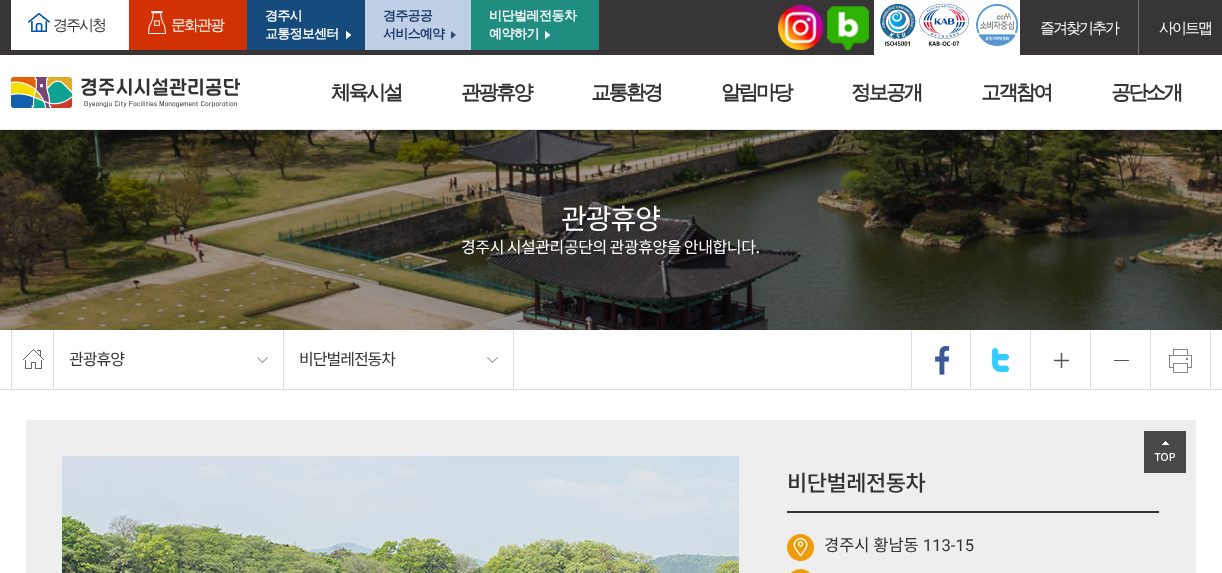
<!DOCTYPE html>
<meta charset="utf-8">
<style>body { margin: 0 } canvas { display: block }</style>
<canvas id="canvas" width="1222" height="573"></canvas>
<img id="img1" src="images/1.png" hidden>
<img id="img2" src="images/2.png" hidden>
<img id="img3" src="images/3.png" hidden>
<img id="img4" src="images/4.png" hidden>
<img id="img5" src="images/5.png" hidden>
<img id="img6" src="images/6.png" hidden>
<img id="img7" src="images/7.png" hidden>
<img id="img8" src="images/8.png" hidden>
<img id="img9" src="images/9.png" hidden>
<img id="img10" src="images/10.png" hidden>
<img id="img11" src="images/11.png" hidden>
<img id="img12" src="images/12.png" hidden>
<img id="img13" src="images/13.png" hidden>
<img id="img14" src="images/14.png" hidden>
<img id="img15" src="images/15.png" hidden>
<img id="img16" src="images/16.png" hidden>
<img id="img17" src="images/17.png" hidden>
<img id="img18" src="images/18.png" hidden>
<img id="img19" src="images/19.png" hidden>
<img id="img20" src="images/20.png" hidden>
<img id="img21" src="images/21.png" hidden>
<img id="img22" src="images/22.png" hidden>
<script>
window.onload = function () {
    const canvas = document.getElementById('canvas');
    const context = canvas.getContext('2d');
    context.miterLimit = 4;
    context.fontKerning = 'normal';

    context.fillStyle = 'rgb(255, 255, 255)';
    context.fillRect(0, 0, 1222, 573);
    context.fillStyle = 'rgb(230, 230, 230)';
    context.fillRect(0, 129, 1222, 1);
    context.fillStyle = 'rgb(55, 53, 53)';
    context.fillRect(0, 0, 1222, 55);
    context.fillStyle = 'rgb(255, 255, 255)';
    context.fillRect(11, 0, 118, 50);
    context.drawImage(document.getElementById('img1'), 28, 13, 22, 19);
    context.fillStyle = 'rgb(210, 50, 3)';
    context.fillRect(129, 0, 118, 50);
    context.drawImage(document.getElementById('img2'), 148, 11, 18, 23);
    context.fillStyle = 'rgb(21, 75, 124)';
    context.fillRect(247, 0, 118, 50);
    context.drawImage(document.getElementById('img3'), 346, 31, 5, 8);
    context.fillStyle = 'rgb(191, 207, 229)';
    context.fillRect(365, 0, 106, 50);
    context.drawImage(document.getElementById('img4'), 451, 31, 5, 8);
    context.fillStyle = 'rgb(31, 142, 128)';
    context.fillRect(471, 0, 128, 50);
    context.drawImage(document.getElementById('img5'), 545, 31, 5, 8);
    context.fillStyle = 'rgb(255, 255, 255)';
    context.fillRect(874, 0, 146, 55);
    context.drawImage(document.getElementById('img6'), 880, 3, 89, 43);
    context.drawImage(document.getElementById('img7'), 778, 5, 45, 45);
    context.drawImage(document.getElementById('img8'), 827, 6, 42, 44);
    context.drawImage(document.getElementById('img9'), 976, 4, 42, 42);
    context.fillStyle = 'rgb(116, 119, 121)';
    context.fillRect(1138, 0, 1, 55);
    context.drawImage(document.getElementById('img10'), 11, 77, 229, 35);
    context.fillStyle = 'rgb(221, 221, 221)';
    context.fillRect(0, 389, 1222, 1);
    context.drawImage(document.getElementById('img11'), 0, 130, 1222, 200);
    context.drawImage(document.getElementById('img12'), 23, 349, 21, 20);
    context.fillRect(53, 330, 1, 60);
    context.fillRect(11, 330, 1, 60);
    context.fillRect(283, 330, 1, 60);
    context.drawImage(document.getElementById('img13'), 257, 357, 11, 6);
    context.fillRect(513, 330, 1, 60);
    context.drawImage(document.getElementById('img13'), 487, 357, 11, 6);
    context.drawImage(document.getElementById('img14'), 935, 346, 14, 29);
    context.fillRect(970, 330, 1, 60);
    context.fillRect(911, 330, 1, 60);
    context.drawImage(document.getElementById('img15'), 992, 348, 17, 24);
    context.fillRect(1030, 330, 1, 60);
    context.drawImage(document.getElementById('img16'), 1054, 353, 15, 15);
    context.fillRect(1090, 330, 1, 60);
    context.drawImage(document.getElementById('img17'), 1114, 360, 15, 1);
    context.fillRect(1150, 330, 1, 60);
    context.drawImage(document.getElementById('img18'), 1169, 349, 23, 24);
    context.fillRect(1210, 330, 1, 60);
    context.fillStyle = 'rgb(238, 238, 238)';
    context.fillRect(26, 420, 1170, 153);
    context.drawImage(document.getElementById('img19'), 62, 456, 677, 117);
    context.fillStyle = 'rgb(51, 51, 51)';
    context.fillRect(787, 511, 372, 2);
    context.drawImage(document.getElementById('img20'), 787, 534, 27, 27);
    context.drawImage(document.getElementById('img21'), 790, 569, 21, 4);
    context.drawImage(document.getElementById('img22'), 1144, 431, 42, 42);
    context.letterSpacing = '-2px';
    context.font = '500 15px WenQuanYi Zen Hei';
    context.fillText('경주시청', 53, 30);
    context.fillStyle = 'rgb(255, 255, 255)';
    context.fillText('문화관광', 171, 30);
    context.letterSpacing = '-0.75px';
    context.font = 'bold 13px WenQuanYi Zen Hei';
    context.fillText('경주시', 265, 20);
    context.fillText('교통정보센터', 265, 38);
    context.fillStyle = 'rgb(24, 56, 104)';
    context.fillText('경주공공', 383, 20);
    context.fillText('서비스예약', 383, 38);
    context.letterSpacing = '-0.5px';
    context.fillStyle = 'rgb(255, 255, 255)';
    context.fillText('비단벌레전동차', 489, 20);
    context.fillText('예약하기', 489, 38);
    context.letterSpacing = '-2px';
    context.font = '500 15px WenQuanYi Zen Hei';
    context.fillText('즐겨찾기추가', 1040, 33);
    context.fillText('사이트맵', 1159, 33);
    context.letterSpacing = '-2.5px';
    context.font = 'bold 20px WenQuanYi Zen Hei';
    context.fillStyle = 'rgb(51, 51, 51)';
    context.fillText('체육시설', 331, 99);
    context.fillText('관광휴양', 461, 99);
    context.fillText('교통환경', 591, 99);
    context.fillText('알림마당', 721, 99);
    context.fillText('정보공개', 851, 99);
    context.fillText('고객참여', 981, 99);
    context.fillText('공단소개', 1111, 99);
    context.letterSpacing = '-1px';
    context.font = '28px Noto Sans KR';
    context.fillStyle = 'rgb(255, 255, 255)';
    context.fillText('관광휴양', 561, 229);
    context.letterSpacing = '-0.4px';
    context.wordSpacing = '-0.5px';
    context.font = '16px Noto Sans KR';
    context.fillText('경주시 시설관리공단의 관광휴양을 안내합니다.', 461, 253);
    context.letterSpacing = '-1px';
    context.wordSpacing = '0px';
    context.fillStyle = 'rgb(51, 51, 51)';
    context.fillText('관광휴양', 69, 365);
    context.fillText('비단벌레전동차', 299, 365);
    context.letterSpacing = '-0.5px';
    context.font = '500 22px Noto Sans KR';
    context.fillText('비단벌레전동차', 787, 491);
    context.letterSpacing = '0px';
    context.font = '16.5px Noto Sans KR';
    context.fillText('경주시 황남동', 824, 551);
    context.font = '16.5px Roboto';
    context.fillText('113-15', 923, 551);
};
</script>
